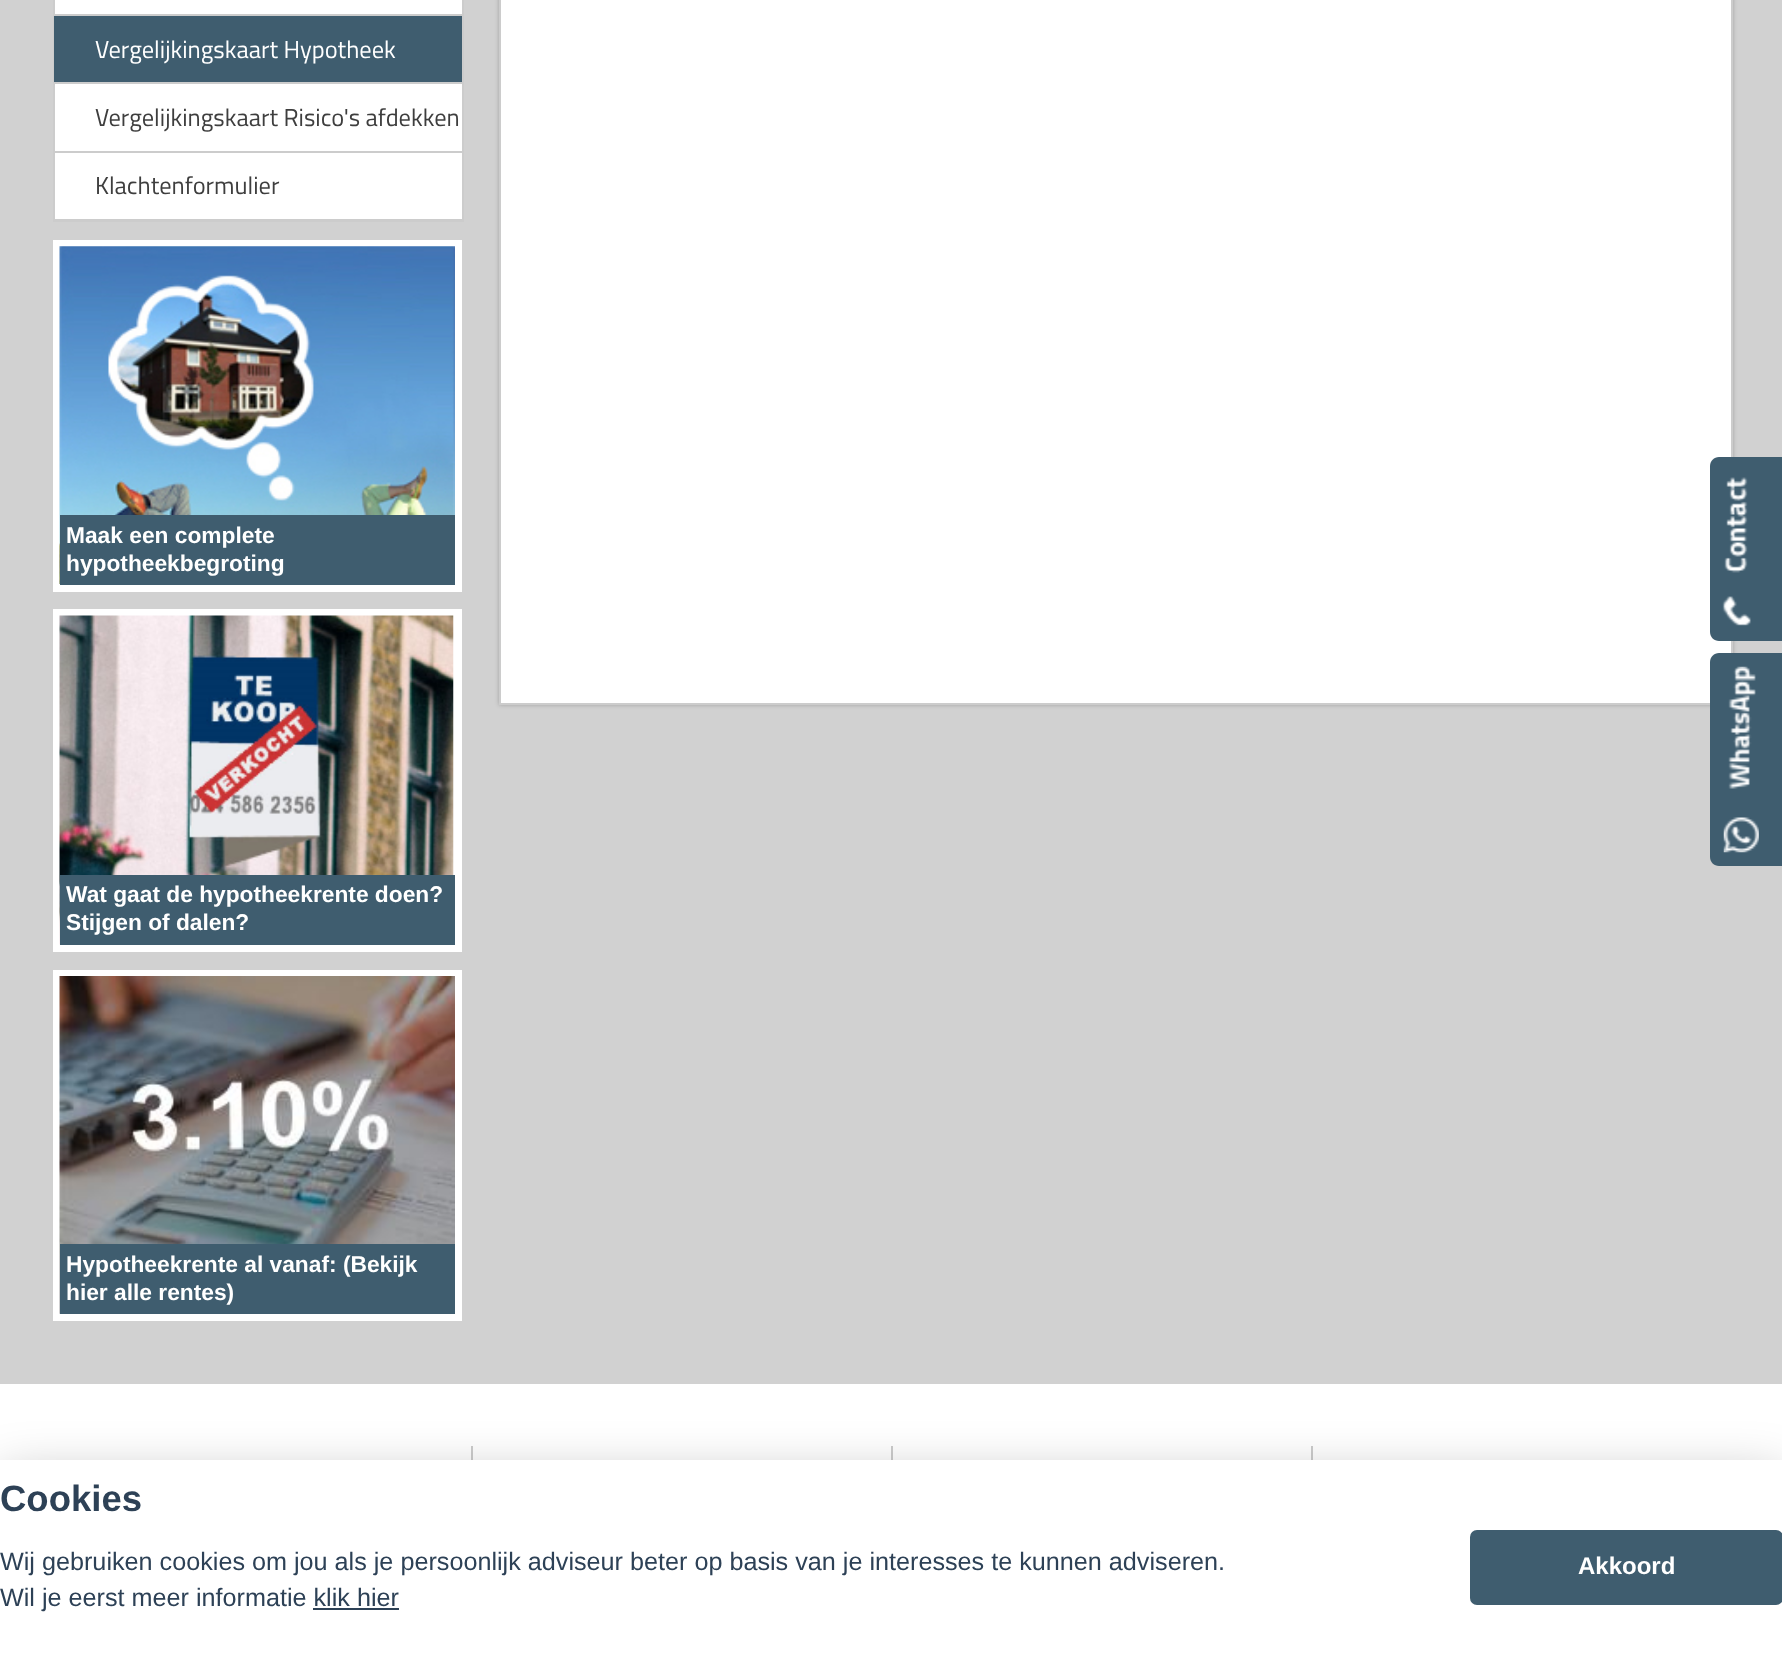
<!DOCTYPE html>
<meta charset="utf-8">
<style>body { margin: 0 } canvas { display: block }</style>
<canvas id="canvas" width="1782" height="1657"></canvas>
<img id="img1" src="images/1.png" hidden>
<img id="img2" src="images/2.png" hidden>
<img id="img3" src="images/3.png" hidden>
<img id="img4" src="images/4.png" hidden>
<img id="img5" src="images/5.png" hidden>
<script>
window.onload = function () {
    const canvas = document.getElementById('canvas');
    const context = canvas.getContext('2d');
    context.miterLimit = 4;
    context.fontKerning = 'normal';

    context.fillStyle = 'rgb(209, 209, 209)';
    context.fillRect(0, 0, 1782, 1657);
    context.fillStyle = 'rgb(255, 255, 255)';
    context.fillRect(55, 0, 407, 219);
    context.strokeStyle = 'rgb(204, 204, 204)';
    context.lineWidth = 2;
    context.strokeRect(54, -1, 409, 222);
    context.fillStyle = 'rgb(204, 204, 204)';
    context.fillRect(54, 14, 408, 2);
    context.fillRect(54, 82, 408, 2);
    context.fillStyle = 'rgb(63, 93, 111)';
    context.fillRect(54, 16, 408, 66);
    context.fillStyle = 'rgb(204, 204, 204)';
    context.fillRect(54, 151, 408, 2);
    context.fillRect(54, 219, 408, 1);
    context.fillStyle = 'rgb(255, 255, 255)';
    context.fillRect(53, 240, 409, 352);
    context.drawImage(document.getElementById('img1'), 59, 246, 396, 338);
    context.fillStyle = 'rgb(63, 93, 111)';
    context.fillRect(60, 515, 395, 70);
    context.fillStyle = 'rgb(255, 255, 255)';
    context.fillRect(53, 609, 409, 343);
    context.drawImage(document.getElementById('img2'), 59, 615, 395, 330);
    context.fillStyle = 'rgb(63, 93, 111)';
    context.fillRect(60, 875, 395, 70);
    context.fillStyle = 'rgb(255, 255, 255)';
    context.fillRect(53, 970, 409, 351);
    context.drawImage(document.getElementById('img3'), 59, 976, 396, 338);
    context.fillStyle = 'rgb(63, 93, 111)';
    context.fillRect(60, 1244, 395, 70);
    context.fillStyle = 'rgba(0, 0, 0, 0.23)';
    context.filter = 'blur(2px)';
    context.beginPath();
    context.rect(499, -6, 1234, 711);
    context.fill();
    context.filter = 'none';
    context.fillStyle = 'rgb(255, 255, 255)';
    context.beginPath();
    context.rect(500, -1, 1232, 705);
    context.fill();
    context.stroke();
    context.fillStyle = 'rgb(63, 93, 111)';
    context.beginPath();
    context.moveTo(1719, 457);
    context.lineTo(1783, 457);
    context.lineTo(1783, 641);
    context.lineTo(1719, 641);
    context.bezierCurveTo(1714, 641, 1710, 637, 1710, 632);
    context.lineTo(1710, 466);
    context.bezierCurveTo(1710, 461, 1714, 457, 1719, 457);
    context.closePath();
    context.fill();
    context.drawImage(document.getElementById('img4'), 1722, 477, 29, 149);
    context.beginPath();
    context.moveTo(1719, 653);
    context.lineTo(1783, 653);
    context.lineTo(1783, 866);
    context.lineTo(1719, 866);
    context.bezierCurveTo(1714, 866, 1710, 862, 1710, 857);
    context.lineTo(1710, 662);
    context.bezierCurveTo(1710, 657, 1714, 653, 1719, 653);
    context.closePath();
    context.fill();
    context.drawImage(document.getElementById('img5'), 1723, 666, 36, 187);
    context.fillStyle = 'rgb(255, 255, 255)';
    context.fillRect(0, 1384, 1782, 76);
    context.fillStyle = 'rgb(204, 204, 204)';
    context.fillRect(471, 1446, 2, 14);
    context.fillRect(891, 1446, 2, 14);
    context.fillRect(1311, 1446, 2, 14);
    context.fillStyle = 'rgba(2, 2, 3, 0.28)';
    context.filter = 'blur(26px)';
    context.beginPath();
    context.rect(0, 1477, 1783, 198);
    context.fill();
    context.filter = 'none';
    context.fillStyle = 'rgb(255, 255, 255)';
    context.fillRect(0, 1460, 1782, 197);
    context.fillStyle = 'rgb(45, 65, 86)';
    context.fillRect(313, 1608, 86, 2);
    context.fillStyle = 'rgb(63, 93, 111)';
    context.beginPath();
    context.roundRect(1470, 1530, 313, 75, 7);
    context.fill();
    context.font = '24.5px Titillium Web';
    context.fillStyle = 'rgb(255, 255, 255)';
    context.fillText('Vergelijkingskaart Hypotheek', 95, 58);
    context.fillStyle = 'rgb(62, 62, 62)';
    context.fillText('Vergelijkingskaart Risico\'s afdekken', 95, 126);
    context.fillText('Klachtenformulier', 95, 194);
    context.font = 'bold 22.75px Liberation Sans';
    context.fillStyle = 'rgb(255, 255, 255)';
    context.fillText('Maak een complete', 66, 543);
    context.fillText('hypotheekbegroting', 66, 571);
    context.fillText('Wat gaat de hypotheekrente doen?', 66, 902);
    context.fillText('Stijgen of dalen?', 66, 930);
    context.fillText('Hypotheekrente al vanaf: (Bekijk', 66, 1272);
    context.fillText('hier alle rentes)', 66, 1300);
    context.font = 'bold 36.5px Liberation Sans';
    context.fillStyle = 'rgb(45, 65, 86)';
    context.fillText('Cookies', 0, 1511);
    context.font = '25.2px Liberation Sans';
    context.fillText('Wij gebruiken cookies om jou als je persoonlijk adviseur beter op basis van je interesses te kunnen adviseren.', 0, 1570);
    context.fillText('Wil je eerst meer informatie klik hier', 0, 1606);
    context.font = 'bold 24px Liberation Sans';
    context.fillStyle = 'rgb(255, 255, 255)';
    context.fillText('Akkoord', 1578, 1574);
};
</script>
